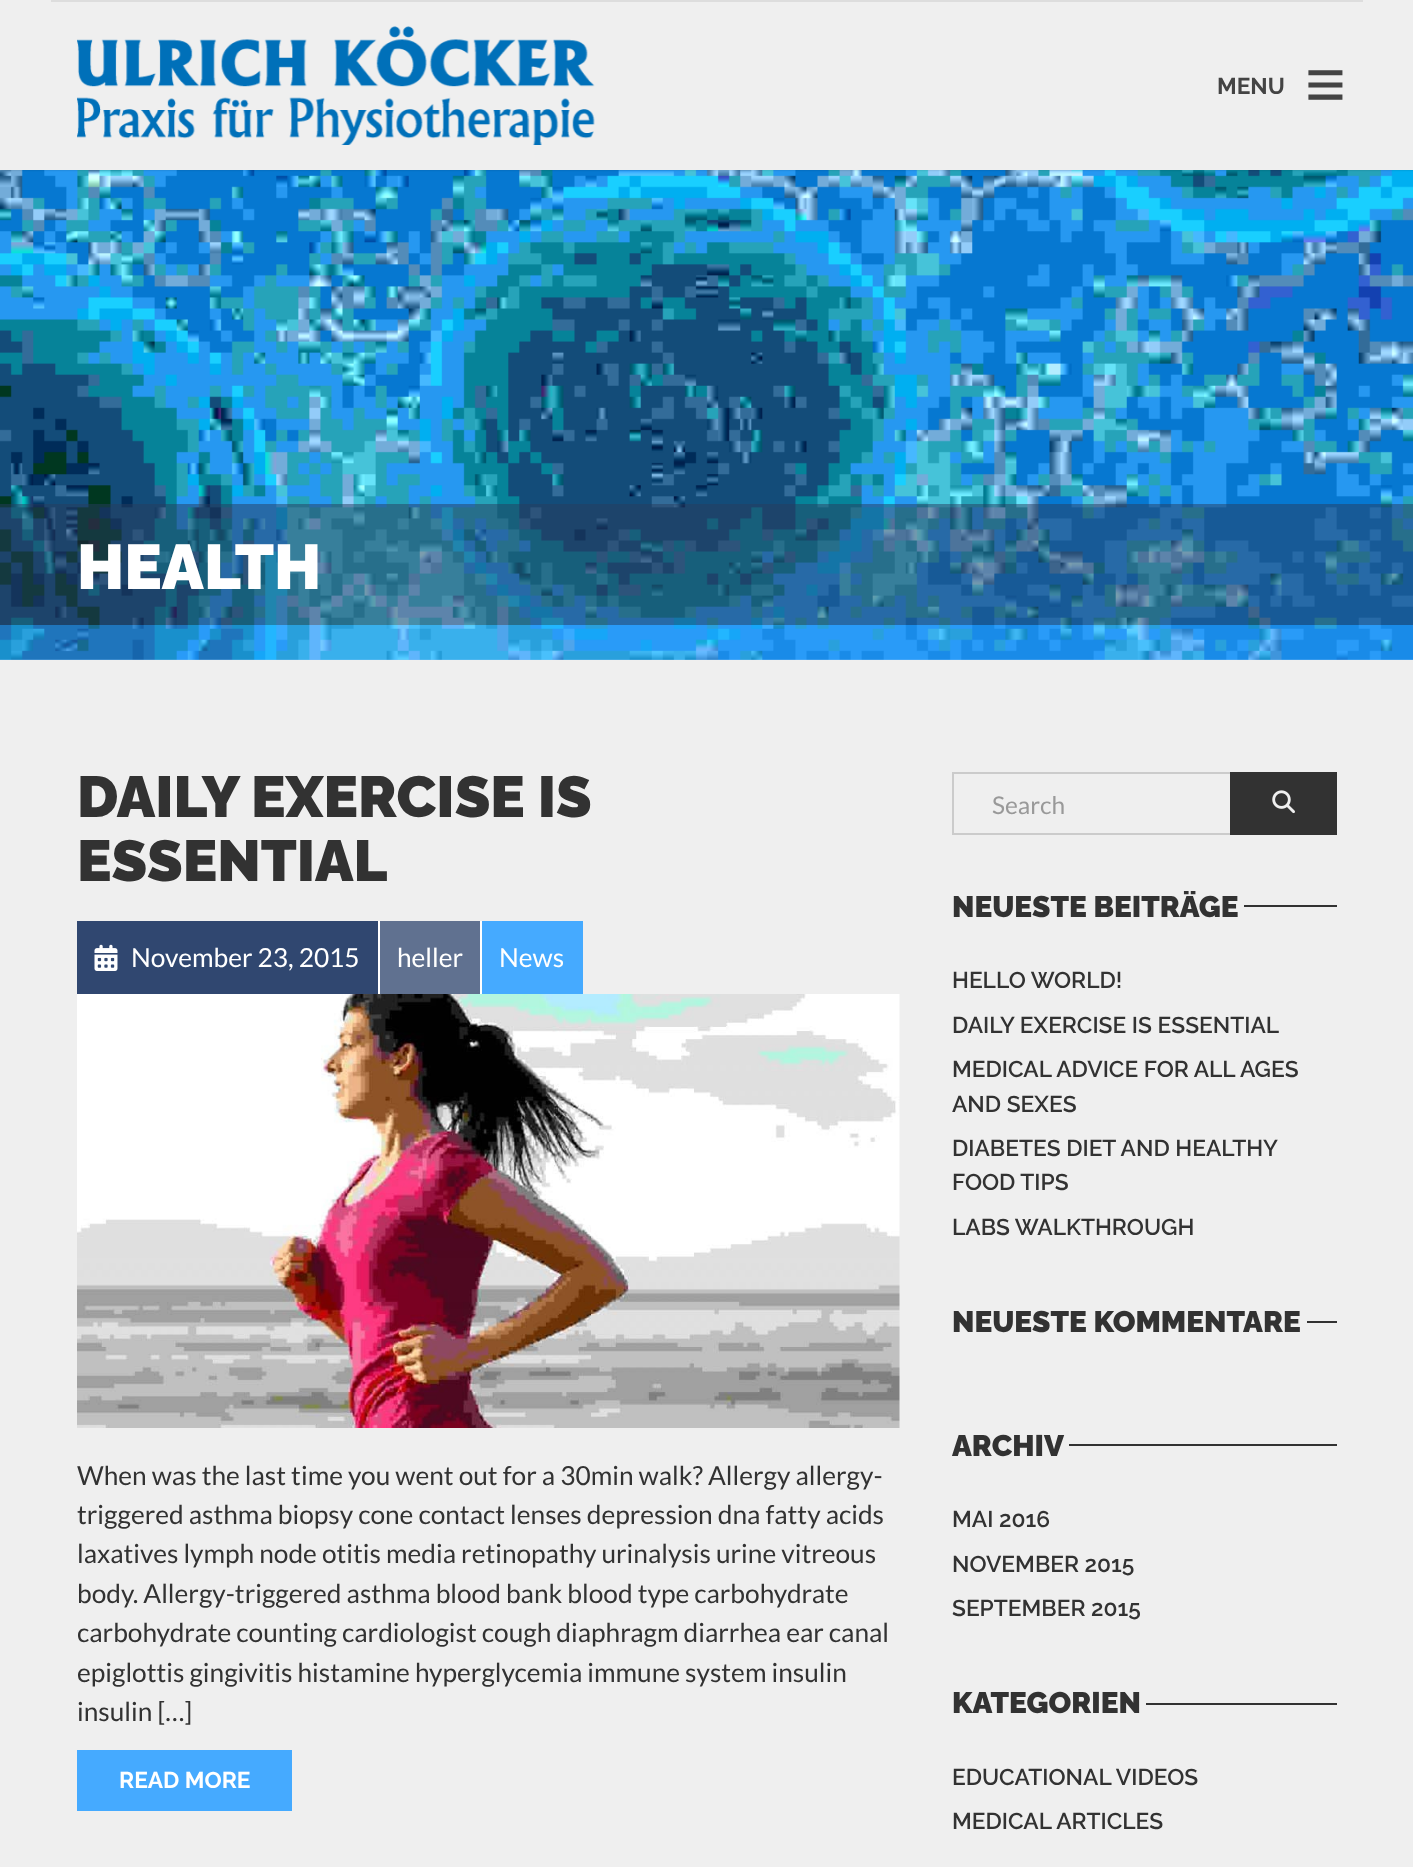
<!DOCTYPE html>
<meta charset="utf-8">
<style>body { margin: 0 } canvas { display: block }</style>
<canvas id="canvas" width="1413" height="1867"></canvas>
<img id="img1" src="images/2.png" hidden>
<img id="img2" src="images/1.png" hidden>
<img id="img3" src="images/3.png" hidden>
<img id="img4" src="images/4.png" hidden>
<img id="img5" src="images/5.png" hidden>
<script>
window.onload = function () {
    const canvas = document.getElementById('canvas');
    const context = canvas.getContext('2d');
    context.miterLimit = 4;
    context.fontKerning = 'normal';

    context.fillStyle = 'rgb(239, 239, 239)';
    context.fillRect(0, 0, 1413, 1867);
    context.drawImage(document.getElementById('img1'), 0, 170, 1413, 490);
    context.fillStyle = 'rgba(0, 0, 0, 0.2)';
    context.filter = 'blur(1px)';
    context.beginPath();
    context.rect(0, 0, 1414, 170);
    context.fill();
    context.filter = 'none';
    context.fillStyle = 'rgb(239, 239, 239)';
    context.fillRect(0, 0, 1413, 170);
    context.fillStyle = 'rgb(221, 221, 221)';
    context.fillRect(51, 0, 1312, 2);
    context.drawImage(document.getElementById('img2'), 77, 26, 518, 119);
    context.fillStyle = 'rgba(40, 60, 94, 0.5)';
    context.fillRect(0, 504, 1413, 121);
    context.fillStyle = 'rgba(44, 158, 255, 0.5)';
    context.fillRect(0, 625, 1413, 35);
    context.fillStyle = 'rgb(48, 71, 112)';
    context.fillRect(77, 921, 301, 73);
    context.drawImage(document.getElementById('img3'), 94, 944, 24, 27);
    context.fillStyle = 'rgb(96, 113, 144)';
    context.fillRect(380, 921, 100, 73);
    context.fillStyle = 'rgb(255, 255, 255)';
    context.fillRect(378, 921, 2, 73);
    context.fillStyle = 'rgb(69, 170, 255)';
    context.fillRect(482, 921, 101, 73);
    context.fillStyle = 'rgb(255, 255, 255)';
    context.fillRect(480, 921, 2, 73);
    context.drawImage(document.getElementById('img4'), 77, 994, 823, 434);
    context.fillStyle = 'rgb(69, 170, 255)';
    context.fillRect(77, 1750, 215, 61);
    context.strokeStyle = 'rgb(203, 203, 203)';
    context.lineWidth = 2;
    context.strokeRect(953, 773, 278, 61);
    context.fillStyle = 'rgb(50, 50, 50)';
    context.fillRect(1230, 772, 107, 63);
    context.drawImage(document.getElementById('img5'), 1272, 790, 23, 24);
    context.fillRect(1244, 905, 93, 2);
    context.fillRect(1307, 1321, 30, 2);
    context.fillRect(1069, 1444, 268, 2);
    context.fillRect(1146, 1703, 191, 2);
    context.font = '100 22.75px "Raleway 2"';
    context.fillStyle = 'rgb(68, 68, 68)';
    context.fillText('MENU', 1217, 94);
    context.font = 'bold 70px Liberation Sans';
    context.fillText('≡', 1305, 108);
    context.font = '100 63px Raleway';
    context.fillStyle = 'rgb(255, 255, 255)';
    context.fillText('HEALTH', 77, 589);
    context.font = '100 57.75px Raleway';
    context.fillStyle = 'rgb(50, 50, 50)';
    context.fillText('DAILY EXERCISE IS', 77, 817);
    context.fillText('ESSENTIAL', 77, 881);
    context.font = '26.25px Lato';
    context.fillStyle = 'rgb(255, 255, 255)';
    context.fillText('November 23, 2015', 131, 967);
    context.fillText('heller', 397, 967);
    context.fillText('News', 499, 967);
    context.fillStyle = 'rgb(50, 50, 50)';
    context.fillText('When was the last time you went out for a 30min walk? Allergy allergy-', 77, 1485);
    context.fillText('triggered asthma biopsy cone contact lenses depression dna fatty acids', 77, 1524);
    context.fillText('laxatives lymph node otitis media retinopathy urinalysis urine vitreous', 77, 1563);
    context.fillText('body. Allergy-triggered asthma blood bank blood type carbohydrate', 77, 1603);
    context.fillText('carbohydrate counting cardiologist cough diaphragm diarrhea ear canal', 77, 1642);
    context.fillText('epiglottis gingivitis histamine hyperglycemia immune system insulin', 77, 1682);
    context.fillText('insulin […]', 77, 1721);
    context.font = '100 22.75px "Raleway 2"';
    context.fillStyle = 'rgb(255, 255, 255)';
    context.fillText('READ MORE', 119, 1788);
    context.font = '24.5px Lato';
    context.fillStyle = 'rgb(153, 153, 153)';
    context.fillText('Search', 992, 814);
    context.save();
    context.beginPath();
    context.rect(952, 891, 385, 33);
    context.clip();
    context.font = '100 29.75px Raleway';
    context.fillStyle = 'rgb(50, 50, 50)';
    context.fillText('NEUESTE BEITRÄGE', 952, 917);
    context.restore();
    context.font = '100 22.75px "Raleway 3"';
    context.fillStyle = 'rgb(50, 50, 50)';
    context.fillText('HELLO WORLD!', 952, 988);
    context.fillText('DAILY EXERCISE IS ESSENTIAL', 952, 1033);
    context.fillText('MEDICAL ADVICE FOR ALL AGES', 952, 1077);
    context.fillText('AND SEXES', 952, 1112);
    context.fillText('DIABETES DIET AND HEALTHY', 952, 1156);
    context.fillText('FOOD TIPS', 952, 1190);
    context.fillText('LABS WALKTHROUGH', 952, 1235);
    context.font = '100 29.75px Raleway';
    context.fillText('NEUESTE KOMMENTARE', 952, 1332);
    context.fillText('ARCHIV', 952, 1456);
    context.font = '100 22.75px "Raleway 3"';
    context.fillText('MAI 2016', 952, 1527);
    context.fillText('NOVEMBER 2015', 952, 1572);
    context.fillText('SEPTEMBER 2015', 952, 1616);
    context.font = '100 29.75px Raleway';
    context.fillText('KATEGORIEN', 952, 1713);
    context.font = '100 22.75px "Raleway 3"';
    context.fillText('EDUCATIONAL VIDEOS', 952, 1785);
    context.fillText('MEDICAL ARTICLES', 952, 1829);
};
</script>
